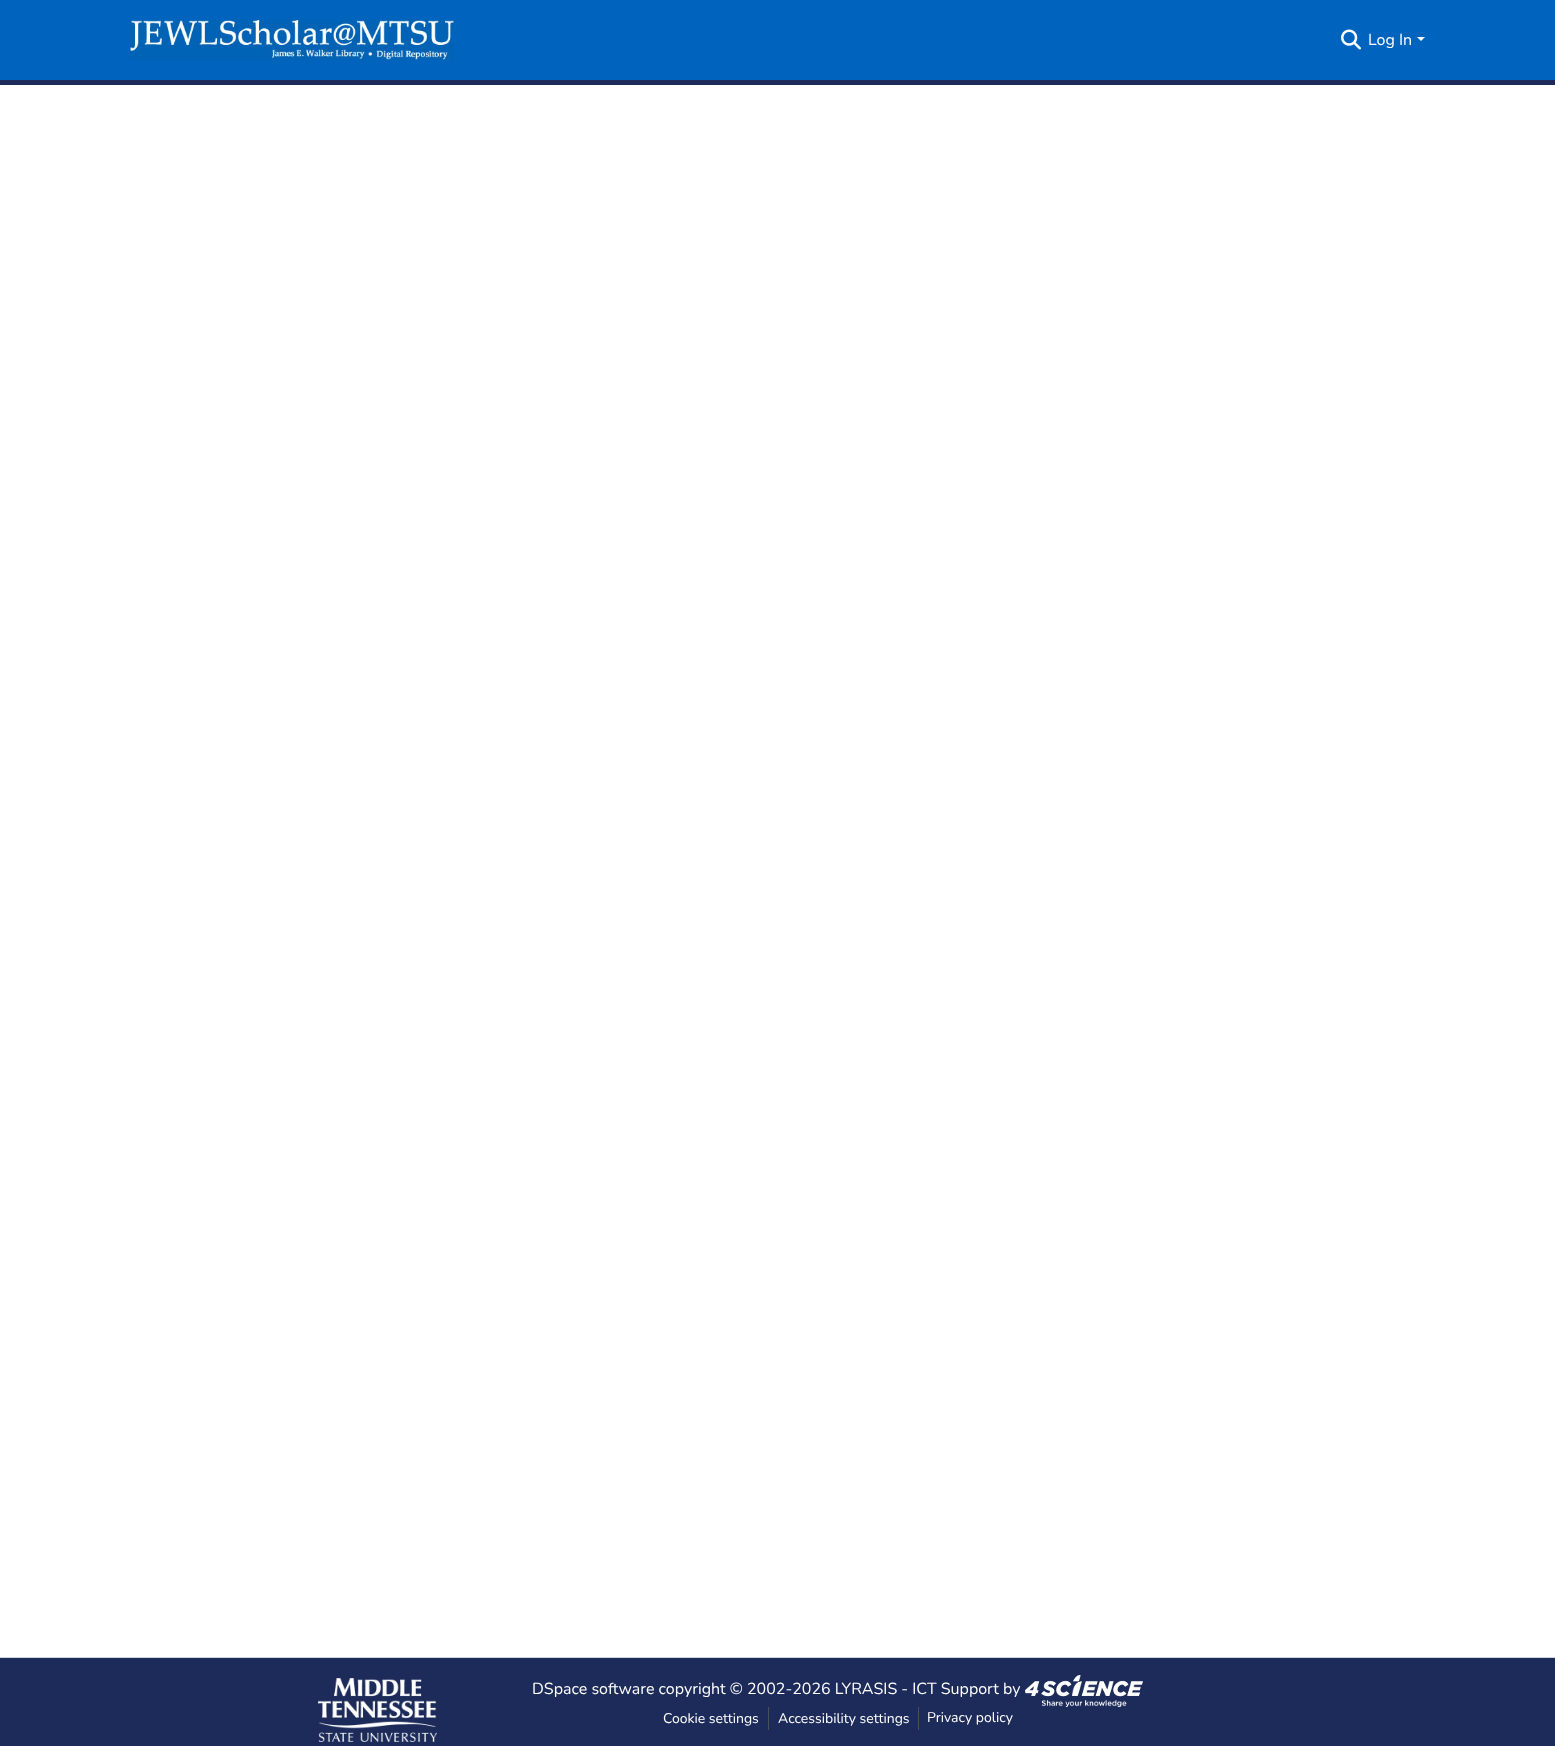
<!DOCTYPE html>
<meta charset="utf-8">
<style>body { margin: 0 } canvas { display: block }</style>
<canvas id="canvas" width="1555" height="1746"></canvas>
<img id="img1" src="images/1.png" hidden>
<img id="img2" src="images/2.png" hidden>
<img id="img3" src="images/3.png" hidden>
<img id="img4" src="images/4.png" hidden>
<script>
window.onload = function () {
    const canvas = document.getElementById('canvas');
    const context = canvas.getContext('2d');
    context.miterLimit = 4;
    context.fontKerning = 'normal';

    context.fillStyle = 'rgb(255, 255, 255)';
    context.fillRect(0, 0, 1555, 1746);
    context.fillStyle = 'rgb(28, 43, 89)';
    context.fillRect(0, 80, 1555, 5);
    context.fillStyle = 'rgb(0, 99, 190)';
    context.fillRect(0, 0, 1555, 80);
    context.drawImage(document.getElementById('img1'), 130, 20, 324, 40);
    context.drawImage(document.getElementById('img2'), 1341, 29, 20, 21);
    context.fillStyle = 'rgb(255, 255, 255)';
    context.beginPath();
    context.moveTo(1417, 37);
    context.lineTo(1425, 37);
    context.lineTo(1421, 41);
    context.closePath();
    context.fill();
    context.fillStyle = 'rgb(28, 43, 89)';
    context.fillRect(0, 1658, 1555, 88);
    context.fillStyle = 'rgb(206, 212, 218)';
    context.fillRect(0, 1657, 1555, 1);
    context.drawImage(document.getElementById('img3'), 318, 1678, 119, 64);
    context.drawImage(document.getElementById('img4'), 1025, 1675, 118, 32);
    context.fillStyle = 'rgb(73, 80, 87)';
    context.fillRect(768, 1707, 1, 23);
    context.fillRect(918, 1707, 1, 23);
    context.font = '16px Nunito';
    context.fillStyle = 'rgb(255, 255, 255)';
    context.fillText('Log In', 1368, 45);
    context.fillText('DSpace software copyright © 2002-2026 LYRASIS - ICT Support by', 532, 1694);
    context.font = '14px Nunito';
    context.fillText('Cookie settings', 663, 1723);
    context.fillText('Accessibility settings', 778, 1723);
    context.fillText('Privacy policy', 927, 1722);
};
</script>
